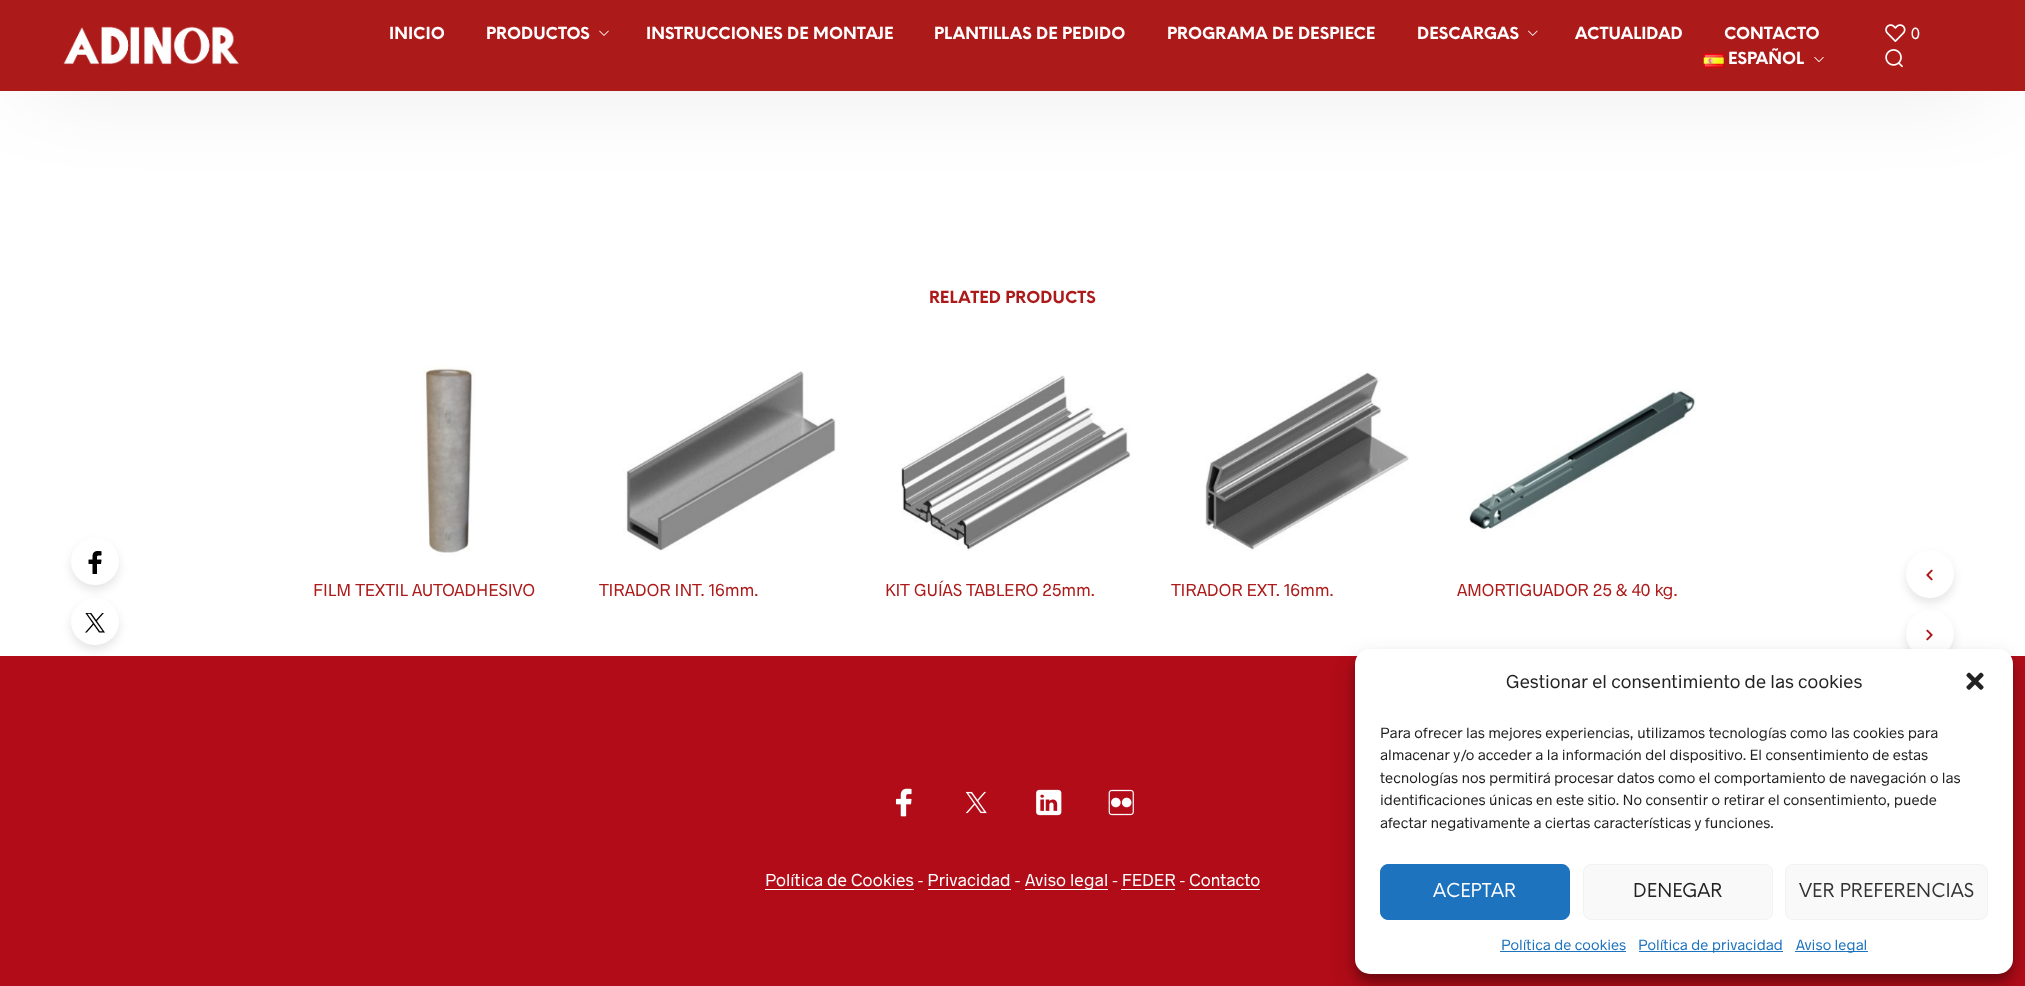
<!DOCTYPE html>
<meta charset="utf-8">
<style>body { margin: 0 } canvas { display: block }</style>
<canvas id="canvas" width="2025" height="986"></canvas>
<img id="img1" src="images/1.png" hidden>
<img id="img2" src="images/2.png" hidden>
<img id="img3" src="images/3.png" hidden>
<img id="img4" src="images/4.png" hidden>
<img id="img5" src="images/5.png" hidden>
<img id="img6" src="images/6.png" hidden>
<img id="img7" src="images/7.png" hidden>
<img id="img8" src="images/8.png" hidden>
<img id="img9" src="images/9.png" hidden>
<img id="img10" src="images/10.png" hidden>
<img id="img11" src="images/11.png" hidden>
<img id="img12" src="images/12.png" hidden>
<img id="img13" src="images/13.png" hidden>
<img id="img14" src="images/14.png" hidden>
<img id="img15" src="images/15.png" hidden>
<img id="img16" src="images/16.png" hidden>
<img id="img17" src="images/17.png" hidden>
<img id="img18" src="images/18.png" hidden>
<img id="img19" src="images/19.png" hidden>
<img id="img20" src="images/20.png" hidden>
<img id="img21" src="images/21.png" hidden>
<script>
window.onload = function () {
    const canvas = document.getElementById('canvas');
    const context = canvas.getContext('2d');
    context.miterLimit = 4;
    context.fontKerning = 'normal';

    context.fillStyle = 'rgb(255, 255, 255)';
    context.fillRect(0, 0, 2025, 986);
    context.fillStyle = 'rgba(0, 0, 0, 0.29)';
    context.filter = 'blur(50.5px)';
    context.beginPath();
    context.rect(31, 36, 1958, 24);
    context.fill();
    context.filter = 'none';
    context.fillStyle = 'rgb(173, 26, 26)';
    context.fillRect(0, 0, 2025, 91);
    context.drawImage(document.getElementById('img1'), 63, 26, 176, 39);
    context.drawImage(document.getElementById('img2'), 599, 30, 10, 6);
    context.drawImage(document.getElementById('img3'), 1528, 30, 10, 6);
    context.drawImage(document.getElementById('img4'), 1703, 53, 21, 15);
    context.drawImage(document.getElementById('img5'), 1814, 57, 10, 5);
    context.drawImage(document.getElementById('img6'), 1885, 24, 21, 18);
    context.drawImage(document.getElementById('img7'), 1885, 49, 18, 19);
    context.drawImage(document.getElementById('img8'), 421, 365, 54, 191);
    context.drawImage(document.getElementById('img9'), 623, 371, 213, 180);
    context.drawImage(document.getElementById('img10'), 898, 375, 233, 176);
    context.drawImage(document.getElementById('img11'), 1205, 372, 204, 179);
    context.drawImage(document.getElementById('img12'), 1469, 389, 227, 143);
    context.fillStyle = 'rgba(0, 0, 0, 0.1)';
    context.filter = 'blur(5px)';
    context.beginPath();
    context.roundRect(71, 543, 48, 47, 23.5);
    context.fill();
    context.filter = 'none';
    context.fillStyle = 'rgb(255, 255, 255)';
    context.beginPath();
    context.roundRect(71, 538, 48, 47, 23.5);
    context.fill();
    context.drawImage(document.getElementById('img13'), 88, 551, 14, 23);
    context.fillStyle = 'rgba(0, 0, 0, 0.1)';
    context.filter = 'blur(5px)';
    context.beginPath();
    context.roundRect(71, 603, 48, 47, 23.5);
    context.fill();
    context.filter = 'none';
    context.fillStyle = 'rgb(255, 255, 255)';
    context.beginPath();
    context.roundRect(71, 598, 48, 47, 23.5);
    context.fill();
    context.drawImage(document.getElementById('img14'), 85, 613, 20, 20);
    context.fillStyle = 'rgba(0, 0, 0, 0.1)';
    context.filter = 'blur(5px)';
    context.beginPath();
    context.roundRect(1906, 555, 48, 48, 24);
    context.fill();
    context.filter = 'none';
    context.fillStyle = 'rgb(255, 255, 255)';
    context.beginPath();
    context.arc(1930, 574, 24, 0, 2 * Math.PI);
    context.fill();
    context.drawImage(document.getElementById('img15'), 1926, 569, 7, 12);
    context.fillStyle = 'rgba(0, 0, 0, 0.1)';
    context.filter = 'blur(5px)';
    context.beginPath();
    context.roundRect(1906, 615, 48, 48, 24);
    context.fill();
    context.filter = 'none';
    context.fillStyle = 'rgb(255, 255, 255)';
    context.beginPath();
    context.arc(1930, 634, 24, 0, 2 * Math.PI);
    context.fill();
    context.drawImage(document.getElementById('img16'), 1926, 629, 7, 12);
    context.fillStyle = 'rgb(177, 12, 24)';
    context.fillRect(0, 656, 2025, 330);
    context.drawImage(document.getElementById('img17'), 895, 788, 17, 29);
    context.drawImage(document.getElementById('img18'), 965, 791, 22, 23);
    context.drawImage(document.getElementById('img19'), 1036, 789, 26, 27);
    context.drawImage(document.getElementById('img20'), 1108, 789, 26, 27);
    context.fillStyle = 'rgb(255, 255, 255)';
    context.fillRect(765, 889, 149, 1);
    context.fillRect(1025, 889, 83, 1);
    context.fillRect(928, 889, 83, 1);
    context.fillRect(1121, 889, 54, 1);
    context.fillRect(1189, 889, 71, 1);
    context.fillStyle = 'rgba(0, 0, 0, 0.23)';
    context.filter = 'blur(4px)';
    context.beginPath();
    context.roundRect(1355, 656, 658, 325, 15);
    context.fill();
    context.filter = 'none';
    context.fillStyle = 'rgba(0, 0, 0, 0.19)';
    context.filter = 'blur(12.5px)';
    context.beginPath();
    context.roundRect(1355, 661, 658, 325, 15);
    context.fill();
    context.filter = 'none';
    context.fillStyle = 'rgb(255, 255, 255)';
    context.beginPath();
    context.roundRect(1355, 649, 658, 325, 15);
    context.fill();
    context.drawImage(document.getElementById('img21'), 1966, 672, 18, 18);
    context.fillStyle = 'rgb(30, 115, 190)';
    context.beginPath();
    context.roundRect(1380.5, 864.5, 189, 55, 7.5);
    context.fill();
    context.strokeStyle = 'rgb(30, 115, 190)';
    context.stroke();
    context.fillStyle = 'rgb(249, 249, 249)';
    context.beginPath();
    context.roundRect(1583.5, 864.5, 189, 55, 7.5);
    context.fill();
    context.strokeStyle = 'rgb(242, 242, 242)';
    context.stroke();
    context.beginPath();
    context.roundRect(1785.5, 864.5, 202, 55, 7.5);
    context.fill();
    context.stroke();
    context.fillStyle = 'rgb(30, 115, 190)';
    context.fillRect(1500, 951, 126, 1);
    context.fillRect(1639, 951, 144, 1);
    context.fillRect(1795, 951, 73, 1);
    context.font = 'bold 16.25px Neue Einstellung';
    context.fillStyle = 'rgb(255, 255, 255)';
    context.fillText('INICIO', 389, 39);
    context.fillText('PRODUCTOS', 486, 39);
    context.fillText('INSTRUCCIONES DE MONTAJE', 646, 39);
    context.fillText('PLANTILLAS DE PEDIDO', 934, 39);
    context.fillText('PROGRAMA DE DESPIECE', 1167, 39);
    context.fillText('DESCARGAS', 1417, 39);
    context.fillText('ACTUALIDAD', 1575, 39);
    context.fillText('CONTACTO', 1724, 39);
    context.fillText('ESPAÑOL', 1728, 64);
    context.font = '16.25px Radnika';
    context.fillText('0', 1911, 39);
    context.font = 'bold 16.25px Neue Einstellung';
    context.fillStyle = 'rgb(173, 26, 26)';
    context.fillText('RELATED PRODUCTS', 929, 303);
    context.font = '17.5px Radnika';
    context.fillText('FILM TEXTIL AUTOADHESIVO', 313, 596);
    context.fillText('TIRADOR INT. 16mm.', 599, 596);
    context.fillText('KIT GUÍAS TABLERO 25mm.', 885, 596);
    context.fillText('TIRADOR EXT. 16mm.', 1171, 596);
    context.fillText('AMORTIGUADOR 25 & 40 kg.', 1457, 596);
    context.fillStyle = 'rgb(255, 255, 255)';
    context.fillText('Política de Cookies - Privacidad -', 765, 886);
    context.fillText('Aviso legal - FEDER - Contacto', 1025, 886);
    context.font = '18.75px Radnika';
    context.fillStyle = 'rgb(34, 34, 34)';
    context.fillText('Gestionar el consentimiento de las cookies', 1506, 688);
    context.font = '15px Radnika';
    context.fillText('Para ofrecer las mejores experiencias, utilizamos tecnologías como las cookies para', 1380, 738);
    context.fillText('almacenar y/o acceder a la información del dispositivo. El consentimiento de estas', 1380, 760);
    context.fillText('tecnologías nos permitirá procesar datos como el comportamiento de navegación o las', 1380, 783);
    context.fillText('identificaciones únicas en este sitio. No consentir o retirar el consentimiento, puede', 1380, 805);
    context.fillText('afectar negativamente a ciertas características y funciones.', 1380, 828);
    context.font = '18.75px Neue Einstellung';
    context.fillStyle = 'rgb(255, 255, 255)';
    context.fillText('ACEPTAR', 1433, 897);
    context.fillStyle = 'rgb(34, 34, 34)';
    context.fillText('DENEGAR', 1633, 897);
    context.fillStyle = 'rgb(51, 51, 51)';
    context.fillText('VER PREFERENCIAS', 1799, 897);
    context.font = '15px Radnika';
    context.fillStyle = 'rgb(30, 115, 190)';
    context.fillText('Política de cookies', 1501, 950);
    context.fillText('Política de privacidad', 1638, 950);
    context.fillText('Aviso legal', 1796, 950);
};
</script>
